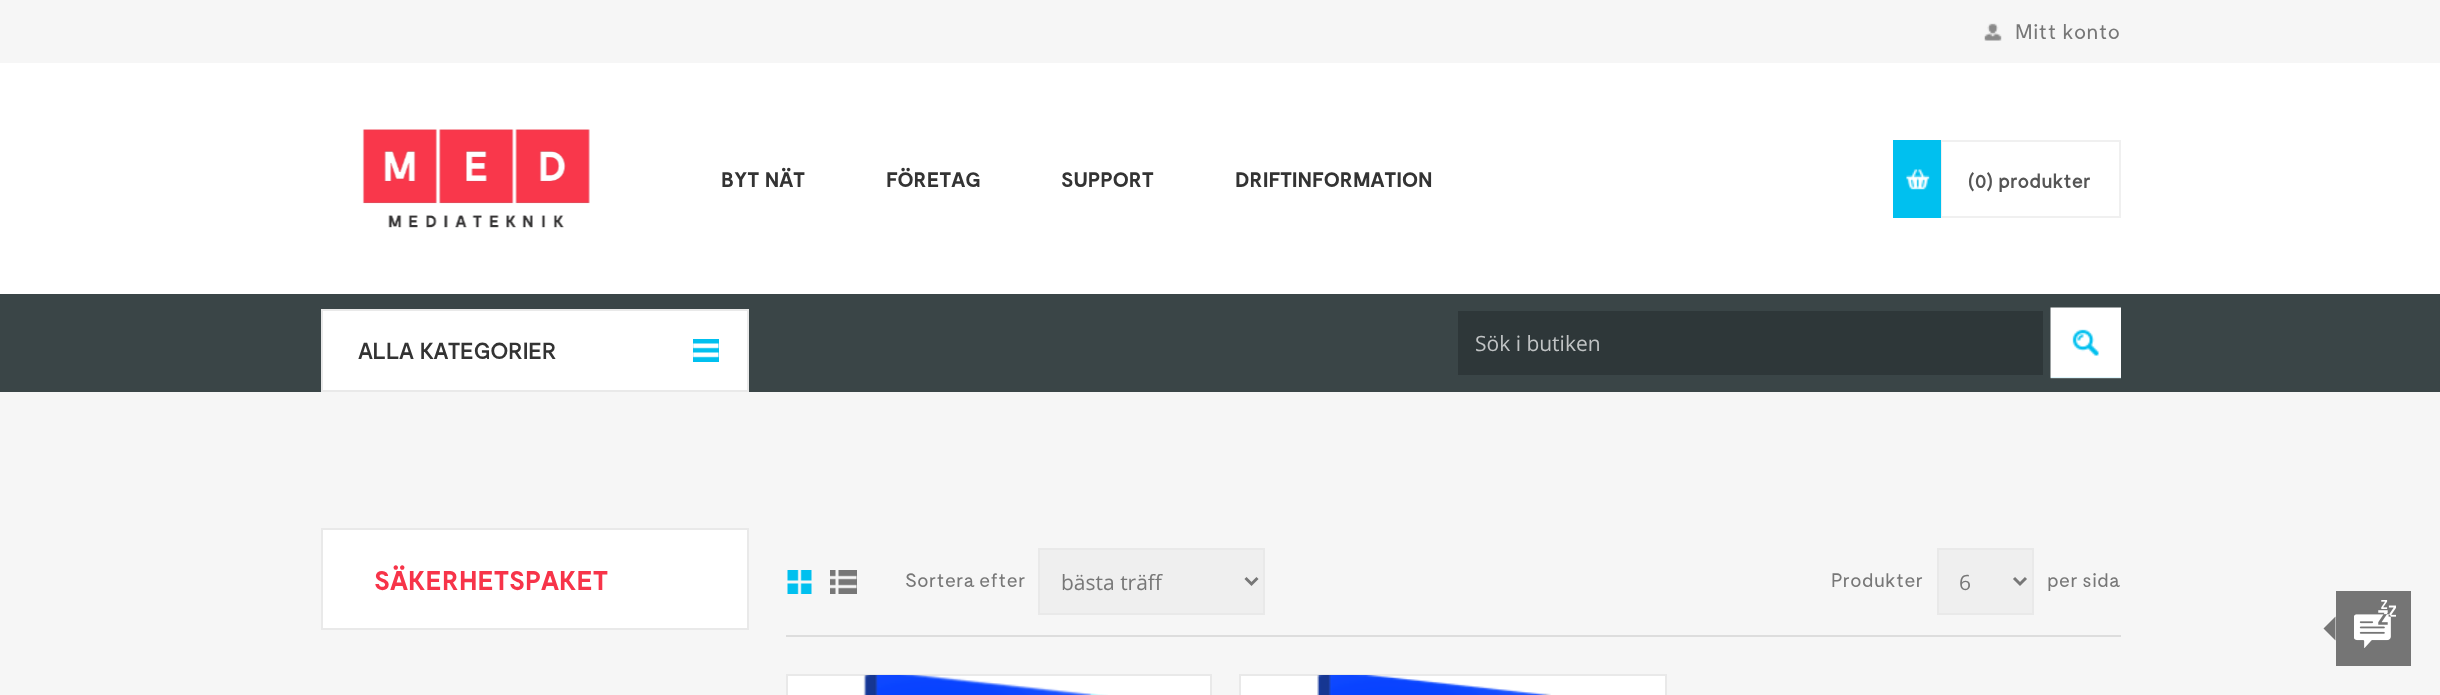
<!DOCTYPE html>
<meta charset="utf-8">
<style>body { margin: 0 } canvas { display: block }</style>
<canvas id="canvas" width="2440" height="695"></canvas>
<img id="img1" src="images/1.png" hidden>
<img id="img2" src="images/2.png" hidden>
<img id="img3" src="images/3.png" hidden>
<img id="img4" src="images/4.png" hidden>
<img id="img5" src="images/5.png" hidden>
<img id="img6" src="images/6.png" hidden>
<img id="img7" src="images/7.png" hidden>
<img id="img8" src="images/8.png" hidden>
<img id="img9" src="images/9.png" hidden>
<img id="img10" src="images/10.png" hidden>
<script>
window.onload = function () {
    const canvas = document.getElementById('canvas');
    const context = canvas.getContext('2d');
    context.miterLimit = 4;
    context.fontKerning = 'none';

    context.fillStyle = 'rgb(246, 246, 246)';
    context.fillRect(0, 0, 2440, 695);
    context.drawImage(document.getElementById('img1'), 1984, 23, 18, 18);
    context.fillStyle = 'rgb(255, 255, 255)';
    context.fillRect(0, 63, 2440, 231);
    context.drawImage(document.getElementById('img2'), 362, 129, 228, 99);
    context.strokeStyle = 'rgb(240, 240, 240)';
    context.lineWidth = 2;
    context.strokeRect(1941, 141, 179, 76);
    context.fillStyle = 'rgb(0, 192, 239)';
    context.fillRect(1893, 140, 48, 78);
    context.drawImage(document.getElementById('img3'), 1906, 169, 24, 21);
    context.fillStyle = 'rgb(58, 69, 71)';
    context.fillRect(0, 294, 2440, 98);
    context.fillStyle = 'rgb(255, 255, 255)';
    context.beginPath();
    context.rect(322, 310, 426, 81);
    context.fill();
    context.strokeStyle = 'rgb(233, 233, 233)';
    context.stroke();
    context.fillStyle = 'rgb(0, 192, 239)';
    context.fillRect(693, 339, 26, 23);
    context.drawImage(document.getElementById('img4'), 693, 343, 26, 15);
    context.fillStyle = 'rgb(46, 55, 57)';
    context.fillRect(1458, 311, 585, 64);
    context.fillStyle = 'rgb(0, 192, 239)';
    context.fillRect(2051, 329, 70, 49);
    context.drawImage(document.getElementById('img5'), 2050, 307, 71, 72);
    context.fillStyle = 'rgb(255, 255, 255)';
    context.beginPath();
    context.rect(322, 529, 426, 100);
    context.fill();
    context.stroke();
    context.fillStyle = 'rgb(221, 221, 221)';
    context.fillRect(786, 635, 1335, 2);
    context.fillStyle = 'rgb(0, 192, 239)';
    context.fillRect(787, 570, 25, 24);
    context.drawImage(document.getElementById('img6'), 786, 570, 27, 24);
    context.fillStyle = 'rgb(119, 119, 119)';
    context.fillRect(830, 570, 27, 24);
    context.drawImage(document.getElementById('img7'), 830, 570, 27, 24);
    context.fillStyle = 'rgb(239, 239, 239)';
    context.beginPath();
    context.rect(1039, 549, 225, 65);
    context.fill();
    context.stroke();
    context.beginPath();
    context.moveTo(1245.5, 578);
    context.lineTo(1251.5, 584);
    context.lineTo(1257.5, 578);
    context.strokeStyle = 'rgb(119, 119, 119)';
    context.lineWidth = 3;
    context.stroke();
    context.beginPath();
    context.rect(1938, 549, 95, 65);
    context.fill();
    context.strokeStyle = 'rgb(233, 233, 233)';
    context.lineWidth = 2;
    context.stroke();
    context.beginPath();
    context.moveTo(2014, 578);
    context.lineTo(2020, 584);
    context.lineTo(2026, 578);
    context.strokeStyle = 'rgb(119, 119, 119)';
    context.lineWidth = 3;
    context.stroke();
    context.fillStyle = 'rgb(255, 255, 255)';
    context.beginPath();
    context.rect(787, 675, 424, 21);
    context.fill();
    context.strokeStyle = 'rgb(233, 233, 233)';
    context.lineWidth = 2;
    context.stroke();
    context.drawImage(document.getElementById('img8'), 863, 675, 245, 20);
    context.beginPath();
    context.rect(1240, 675, 426, 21);
    context.fill();
    context.stroke();
    context.drawImage(document.getElementById('img9'), 1317, 675, 234, 20);
    context.fillStyle = 'rgb(117, 117, 117)';
    context.fillRect(2336, 591, 75, 75);
    context.beginPath();
    context.moveTo(2335.5, 616.5);
    context.lineTo(2335.5, 640.5);
    context.lineTo(2323.5, 628.5);
    context.closePath();
    context.fill();
    context.drawImage(document.getElementById('img10'), 2354, 600, 42, 48);
    context.font = '21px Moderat';
    context.fillStyle = 'rgb(119, 119, 119)';
    context.fillText('Mitt konto', 2015, 39);
    context.font = 'bold 21px Moderat';
    context.fillStyle = 'rgb(51, 51, 51)';
    context.fillText('BYT NÄT', 721, 187);
    context.fillText('FÖRETAG', 886, 187);
    context.fillText('SUPPORT', 1061, 187);
    context.fillText('DRIFTINFORMATION', 1235, 187);
    context.font = 'bold 19.5px "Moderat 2"';
    context.fillStyle = 'rgb(85, 85, 85)';
    context.fillText('(0)', 1968, 188);
    context.fillText('produkter', 1998, 188);
    context.font = 'bold 22.5px "Moderat 2"';
    context.fillStyle = 'rgb(51, 51, 51)';
    context.fillText('ALLA KATEGORIER', 358, 359);
    context.font = '21px Open Sans';
    context.fillStyle = 'rgb(192, 195, 196)';
    context.fillText('Sök i butiken', 1475, 351);
    context.font = 'bold 27px Moderat';
    context.fillStyle = 'rgb(247, 52, 73)';
    context.fillText('SÄKERHETSPAKET', 374, 590);
    context.wordSpacing = '-1px';
    context.font = '19.5px Moderat';
    context.fillStyle = 'rgb(119, 119, 119)';
    context.fillText('Sortera', 905, 587);
    context.fillText('efter', 979, 587);
    context.wordSpacing = '0px';
    context.font = '21px Open Sans';
    context.fillText('bästa träff', 1061, 590);
    context.font = '19.5px Moderat';
    context.fillText('Produkter', 1831, 587);
    context.font = '21px Open Sans';
    context.fillText('6', 1959, 590);
    context.wordSpacing = '-1px';
    context.font = '19.5px Moderat';
    context.fillText('per sida', 2047, 587);
};
</script>
